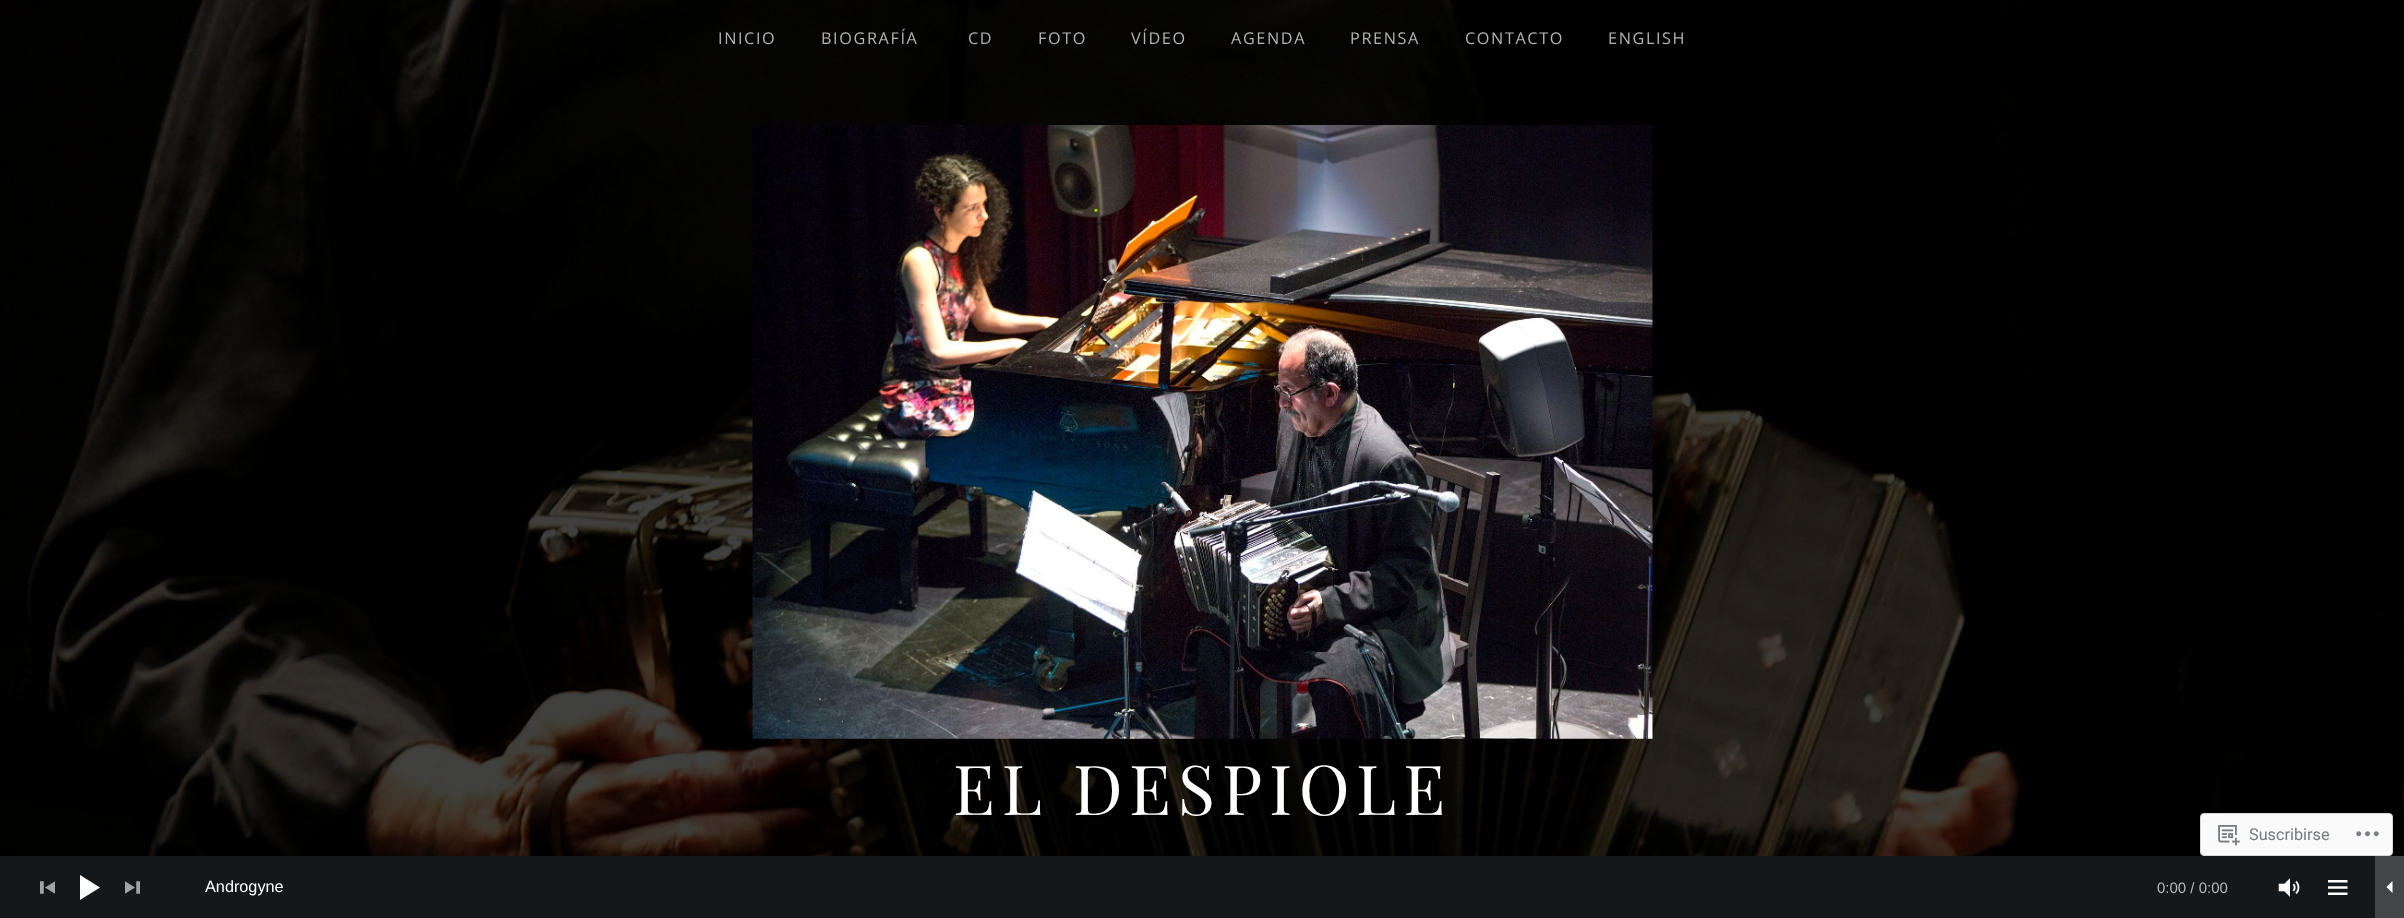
<!DOCTYPE html>
<meta charset="utf-8">
<style>body { margin: 0 } canvas { display: block }</style>
<canvas id="canvas" width="2404" height="918"></canvas>
<img id="img1" src="images/1.png" hidden>
<img id="img2" src="images/2.png" hidden>
<img id="img3" src="images/3.png" hidden>
<img id="img4" src="images/4.png" hidden>
<img id="img5" src="images/5.png" hidden>
<img id="img6" src="images/6.png" hidden>
<img id="img7" src="images/7.png" hidden>
<img id="img8" src="images/8.png" hidden>
<script>
window.onload = function () {
    const canvas = document.getElementById('canvas');
    const context = canvas.getContext('2d');
    context.miterLimit = 4;
    context.fontKerning = 'normal';

    context.fillStyle = 'rgb(255, 255, 255)';
    context.fillRect(0, 0, 2404, 918);
    context.drawImage(document.getElementById('img1'), 0, 0, 2404, 856);
    context.drawImage(document.getElementById('img2'), 752, 125, 901, 614);
    context.fillStyle = 'rgb(250, 250, 250)';
    context.beginPath();
    context.roundRect(2200.5, 813.5, 192, 42, 3.5);
    context.fill();
    context.strokeStyle = 'rgb(216, 216, 218)';
    context.stroke();
    context.drawImage(document.getElementById('img3'), 2218, 825, 22, 21);
    context.drawImage(document.getElementById('img4'), 2356, 831, 23, 6);
    context.fillStyle = 'rgb(20, 24, 26)';
    context.fillRect(0, 856, 2375, 62);
    context.drawImage(document.getElementById('img5'), 40, 881, 15, 13);
    context.fillStyle = 'rgb(255, 255, 255)';
    context.beginPath();
    context.moveTo(100, 887.5);
    context.lineTo(80, 900);
    context.lineTo(80, 875);
    context.closePath();
    context.fill();
    context.drawImage(document.getElementById('img6'), 125, 881, 15, 13);
    context.drawImage(document.getElementById('img7'), 2278, 878, 22, 19);
    context.drawImage(document.getElementById('img8'), 2328, 880, 20, 15);
    context.fillStyle = 'rgb(67, 70, 72)';
    context.fillRect(2375, 856, 29, 62);
    context.fillStyle = 'rgb(255, 255, 255)';
    context.beginPath();
    context.moveTo(2392.5, 893);
    context.lineTo(2386.5, 887);
    context.lineTo(2392.5, 881);
    context.closePath();
    context.fill();
    context.letterSpacing = '1.6px';
    context.font = '16.25px Open Sans';
    context.fillStyle = 'rgb(180, 180, 179)';
    context.fillText('INICIO', 718, 44);
    context.fillText('BIOGRAFÍA', 821, 44);
    context.fillText('CD', 968, 44);
    context.fillText('FOTO', 1038, 44);
    context.fillText('VÍDEO', 1131, 44);
    context.fillText('AGENDA', 1231, 44);
    context.fillText('PRENSA', 1350, 44);
    context.fillText('CONTACTO', 1465, 44);
    context.fillText('ENGLISH', 1608, 44);
    context.letterSpacing = '6.9px';
    context.font = '68.75px Playfair Display';
    context.fillStyle = 'rgb(255, 255, 255)';
    context.fillText('EL DESPIOLE', 953, 815);
    context.letterSpacing = '0px';
    context.font = '16.25px Roboto';
    context.fillStyle = 'rgb(118, 122, 127)';
    context.fillText('Suscribirse', 2249, 840);
    context.font = '16.25px Liberation Sans';
    context.fillStyle = 'rgb(255, 255, 255)';
    context.fillText('Androgyne', 205, 892);
    context.font = '15px Liberation Sans';
    context.fillStyle = 'rgb(185, 186, 186)';
    context.fillText('0:00 / 0:00', 2157, 893);
};
</script>
